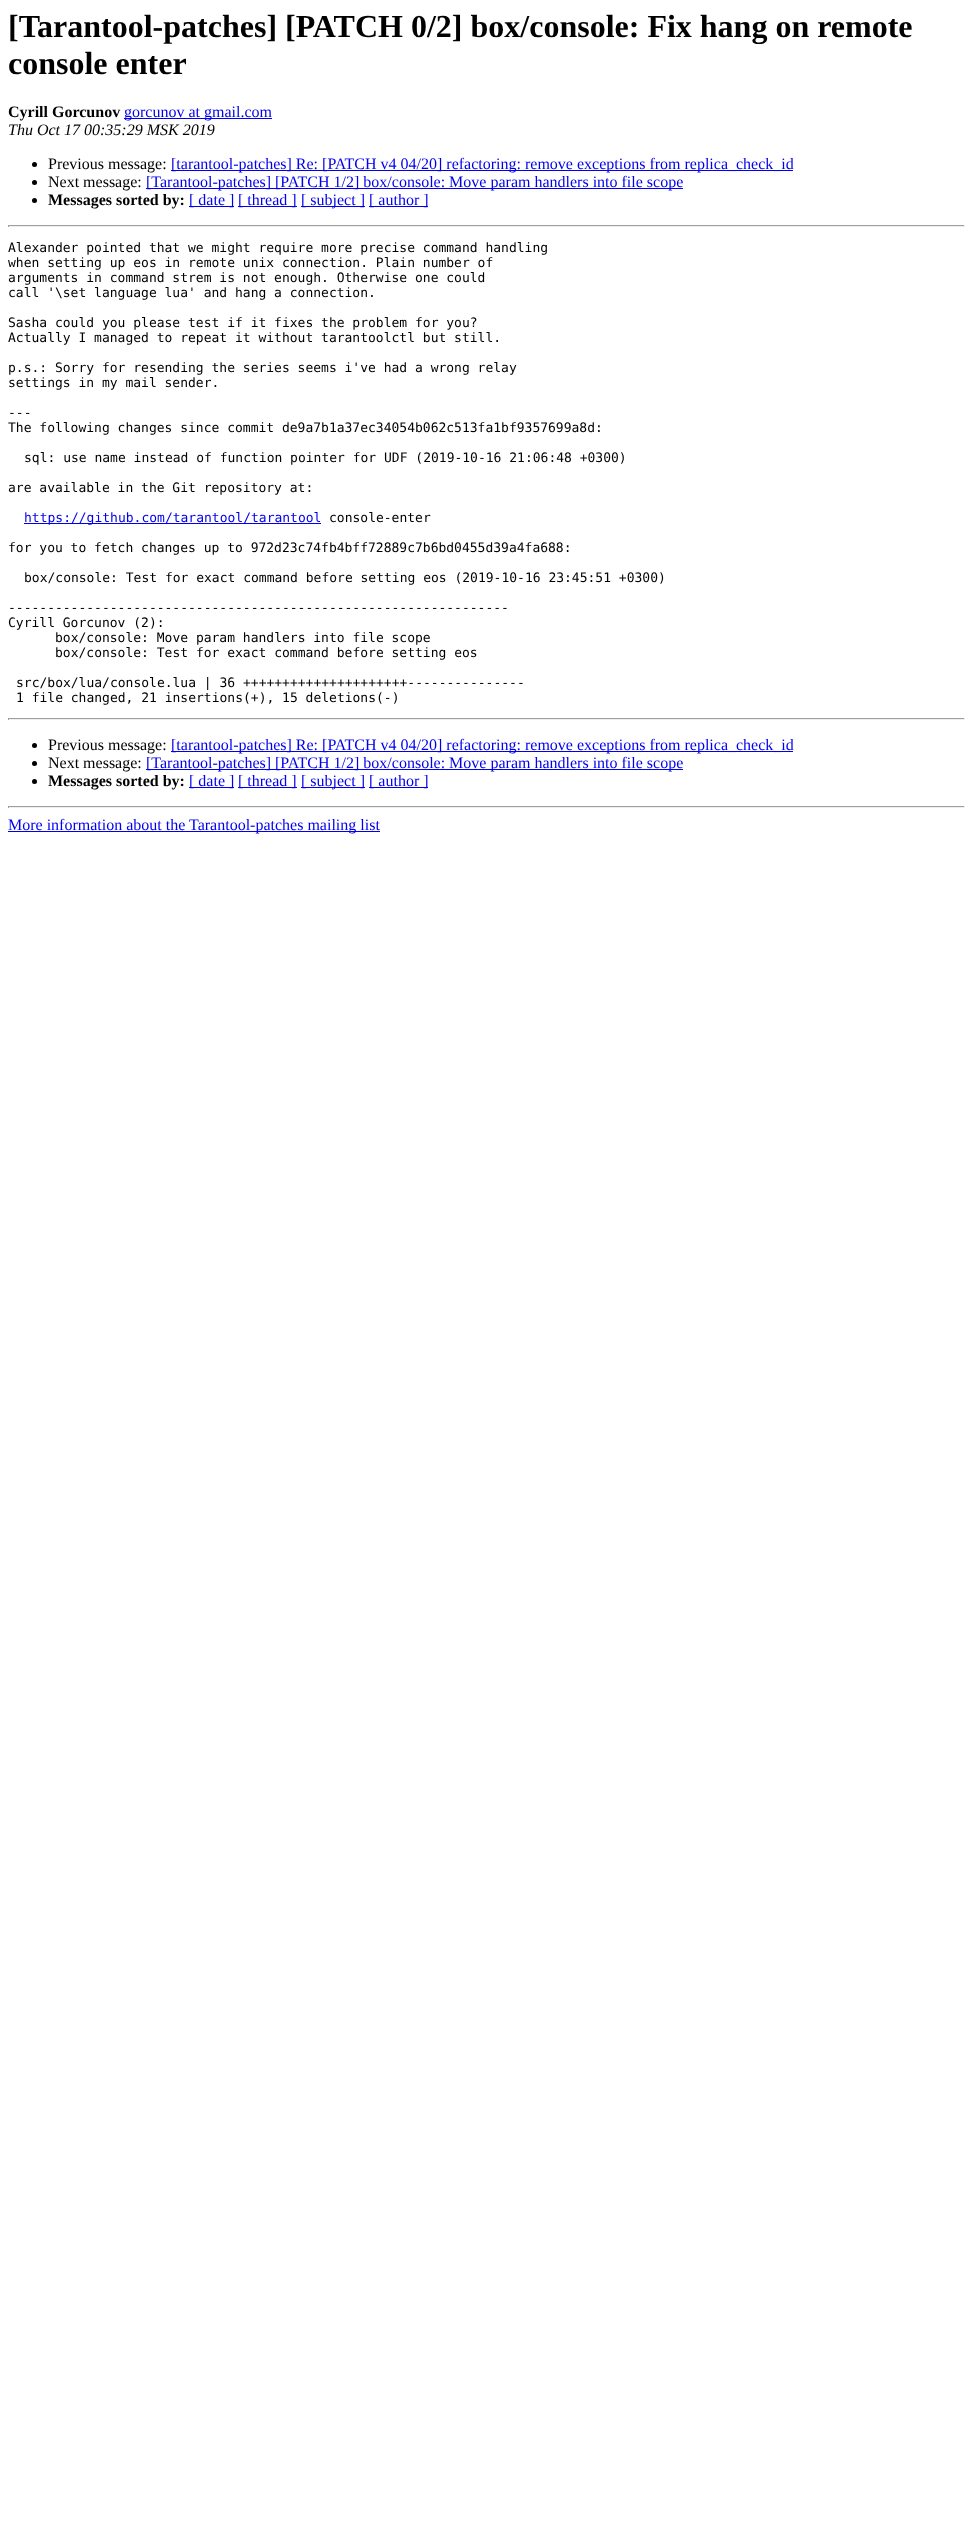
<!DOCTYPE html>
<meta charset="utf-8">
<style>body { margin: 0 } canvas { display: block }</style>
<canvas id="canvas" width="973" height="2534"></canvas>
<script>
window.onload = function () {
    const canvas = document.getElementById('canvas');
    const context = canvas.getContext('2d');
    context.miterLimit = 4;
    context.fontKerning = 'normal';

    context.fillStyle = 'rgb(255, 255, 255)';
    context.fillRect(0, 0, 973, 2534);
    context.fillStyle = 'rgb(0, 0, 238)';
    context.fillRect(124, 118, 148, 1);
    context.fillStyle = 'rgb(0, 0, 0)';
    context.beginPath();
    context.arc(34.5, 164.5, 2.5, 0, 2 * Math.PI);
    context.fill();
    context.fillStyle = 'rgb(0, 0, 238)';
    context.fillRect(171, 170, 622, 1);
    context.fillStyle = 'rgb(0, 0, 0)';
    context.beginPath();
    context.arc(34.5, 182.5, 2.5, 0, 2 * Math.PI);
    context.fill();
    context.fillStyle = 'rgb(0, 0, 238)';
    context.fillRect(146, 188, 537, 1);
    context.fillStyle = 'rgb(0, 0, 0)';
    context.beginPath();
    context.arc(34.5, 200.5, 2.5, 0, 2 * Math.PI);
    context.fill();
    context.fillStyle = 'rgb(0, 0, 238)';
    context.fillRect(189, 206, 45, 1);
    context.fillRect(238, 206, 59, 1);
    context.fillRect(301, 206, 64, 1);
    context.fillRect(369, 206, 59, 1);
    context.fillStyle = 'rgb(159, 159, 159)';
    context.fillRect(8, 225, 957, 1);
    context.fillStyle = 'rgb(238, 238, 238)';
    context.fillRect(964, 225, 1, 2);
    context.fillRect(8, 226, 957, 1);
    context.fillStyle = 'rgb(159, 159, 159)';
    context.fillRect(8, 225, 1, 2);
    context.fillStyle = 'rgb(0, 0, 238)';
    context.fillRect(24, 523, 297, 1);
    context.fillStyle = 'rgb(159, 159, 159)';
    context.fillRect(8, 718, 957, 1);
    context.fillStyle = 'rgb(238, 238, 238)';
    context.fillRect(964, 718, 1, 2);
    context.fillRect(8, 719, 957, 1);
    context.fillStyle = 'rgb(159, 159, 159)';
    context.fillRect(8, 718, 1, 2);
    context.fillStyle = 'rgb(0, 0, 0)';
    context.beginPath();
    context.arc(34.5, 745.5, 2.5, 0, 2 * Math.PI);
    context.fill();
    context.fillStyle = 'rgb(0, 0, 238)';
    context.fillRect(171, 751, 622, 1);
    context.fillStyle = 'rgb(0, 0, 0)';
    context.beginPath();
    context.arc(34.5, 763.5, 2.5, 0, 2 * Math.PI);
    context.fill();
    context.fillStyle = 'rgb(0, 0, 238)';
    context.fillRect(146, 769, 537, 1);
    context.fillStyle = 'rgb(0, 0, 0)';
    context.beginPath();
    context.arc(34.5, 781.5, 2.5, 0, 2 * Math.PI);
    context.fill();
    context.fillStyle = 'rgb(0, 0, 238)';
    context.fillRect(189, 787, 45, 1);
    context.fillRect(238, 787, 59, 1);
    context.fillRect(301, 787, 64, 1);
    context.fillRect(369, 787, 59, 1);
    context.fillStyle = 'rgb(159, 159, 159)';
    context.fillRect(8, 806, 957, 1);
    context.fillStyle = 'rgb(238, 238, 238)';
    context.fillRect(964, 806, 1, 2);
    context.fillRect(8, 807, 957, 1);
    context.fillStyle = 'rgb(159, 159, 159)';
    context.fillRect(8, 806, 1, 2);
    context.fillStyle = 'rgb(0, 0, 238)';
    context.fillRect(8, 831, 372, 1);
    context.font = 'bold 32px Liberation Serif';
    context.fillStyle = 'rgb(0, 0, 0)';
    context.fillText('[Tarantool-patches] [PATCH 0/2] box/console: Fix hang on remote', 8, 37);
    context.fillText('console enter', 8, 74);
    context.font = 'bold 16px Liberation Serif';
    context.fillText('Cyrill Gorcunov', 8, 117);
    context.font = '16px Liberation Serif';
    context.fillStyle = 'rgb(0, 0, 238)';
    context.fillText('gorcunov at gmail.com', 124, 117);
    context.font = 'italic 16px Liberation Serif';
    context.fillStyle = 'rgb(0, 0, 0)';
    context.fillText('Thu Oct 17 00:35:29 MSK 2019', 8, 135);
    context.font = '16px Liberation Serif';
    context.fillText('Previous message:', 48, 169);
    context.fillStyle = 'rgb(0, 0, 238)';
    context.fillText('[tarantool-patches] Re: [PATCH v4 04/20] refactoring: remove exceptions from replica_check_id', 171, 169);
    context.fillStyle = 'rgb(0, 0, 0)';
    context.fillText('Next message:', 48, 187);
    context.fillStyle = 'rgb(0, 0, 238)';
    context.fillText('[Tarantool-patches] [PATCH 1/2] box/console: Move param handlers into file scope', 146, 187);
    context.font = 'bold 16px Liberation Serif';
    context.fillStyle = 'rgb(0, 0, 0)';
    context.fillText('Messages sorted by:', 48, 205);
    context.font = '16px Liberation Serif';
    context.fillStyle = 'rgb(0, 0, 238)';
    context.fillText('[ date ]', 189, 205);
    context.fillText('[ thread ]', 238, 205);
    context.fillText('[ subject ]', 301, 205);
    context.fillText('[ author ]', 369, 205);
    context.font = '13px DejaVu Sans Mono';
    context.fillStyle = 'rgb(0, 0, 0)';
    context.fillText('Alexander pointed that we might require more precise command handling', 8, 252);
    context.fillText('when setting up eos in remote unix connection. Plain number of', 8, 267);
    context.fillText('arguments in command strem is not enough. Otherwise one could', 8, 282);
    context.fillText('call \'\\set language lua\' and hang a connection.', 8, 297);
    context.fillText('Sasha could you please test if it fixes the problem for you?', 8, 327);
    context.fillText('Actually I managed to repeat it without tarantoolctl but still.', 8, 342);
    context.fillText('p.s.: Sorry for resending the series seems i\'ve had a wrong relay', 8, 372);
    context.fillText('settings in my mail sender.', 8, 387);
    context.fillText('---', 8, 417);
    context.fillText('The following changes since commit de9a7b1a37ec34054b062c513fa1bf9357699a8d:', 8, 432);
    context.fillText('sql: use name instead of function pointer for UDF (2019-10-16 21:06:48 +0300)', 24, 462);
    context.fillText('are available in the Git repository at:', 8, 492);
    context.fillStyle = 'rgb(0, 0, 238)';
    context.fillText('https://github.com/tarantool/tarantool', 24, 522);
    context.fillStyle = 'rgb(0, 0, 0)';
    context.fillText('console-enter', 329, 522);
    context.fillText('for you to fetch changes up to 972d23c74fb4bff72889c7b6bd0455d39a4fa688:', 8, 552);
    context.fillText('box/console: Test for exact command before setting eos (2019-10-16 23:45:51 +0300)', 24, 582);
    context.fillText('----------------------------------------------------------------', 8, 612);
    context.fillText('Cyrill Gorcunov (2):', 8, 627);
    context.fillText('box/console: Move param handlers into file scope', 55, 642);
    context.fillText('box/console: Test for exact command before setting eos', 55, 657);
    context.fillText('src/box/lua/console.lua | 36 +++++++++++++++++++++---------------', 16, 687);
    context.fillText('1 file changed, 21 insertions(+), 15 deletions(-)', 16, 702);
    context.font = '16px Liberation Serif';
    context.fillText('Previous message:', 48, 750);
    context.fillStyle = 'rgb(0, 0, 238)';
    context.fillText('[tarantool-patches] Re: [PATCH v4 04/20] refactoring: remove exceptions from replica_check_id', 171, 750);
    context.fillStyle = 'rgb(0, 0, 0)';
    context.fillText('Next message:', 48, 768);
    context.fillStyle = 'rgb(0, 0, 238)';
    context.fillText('[Tarantool-patches] [PATCH 1/2] box/console: Move param handlers into file scope', 146, 768);
    context.font = 'bold 16px Liberation Serif';
    context.fillStyle = 'rgb(0, 0, 0)';
    context.fillText('Messages sorted by:', 48, 786);
    context.font = '16px Liberation Serif';
    context.fillStyle = 'rgb(0, 0, 238)';
    context.fillText('[ date ]', 189, 786);
    context.fillText('[ thread ]', 238, 786);
    context.fillText('[ subject ]', 301, 786);
    context.fillText('[ author ]', 369, 786);
    context.fillText('More information about the Tarantool-patches mailing list', 8, 830);
};
</script>
